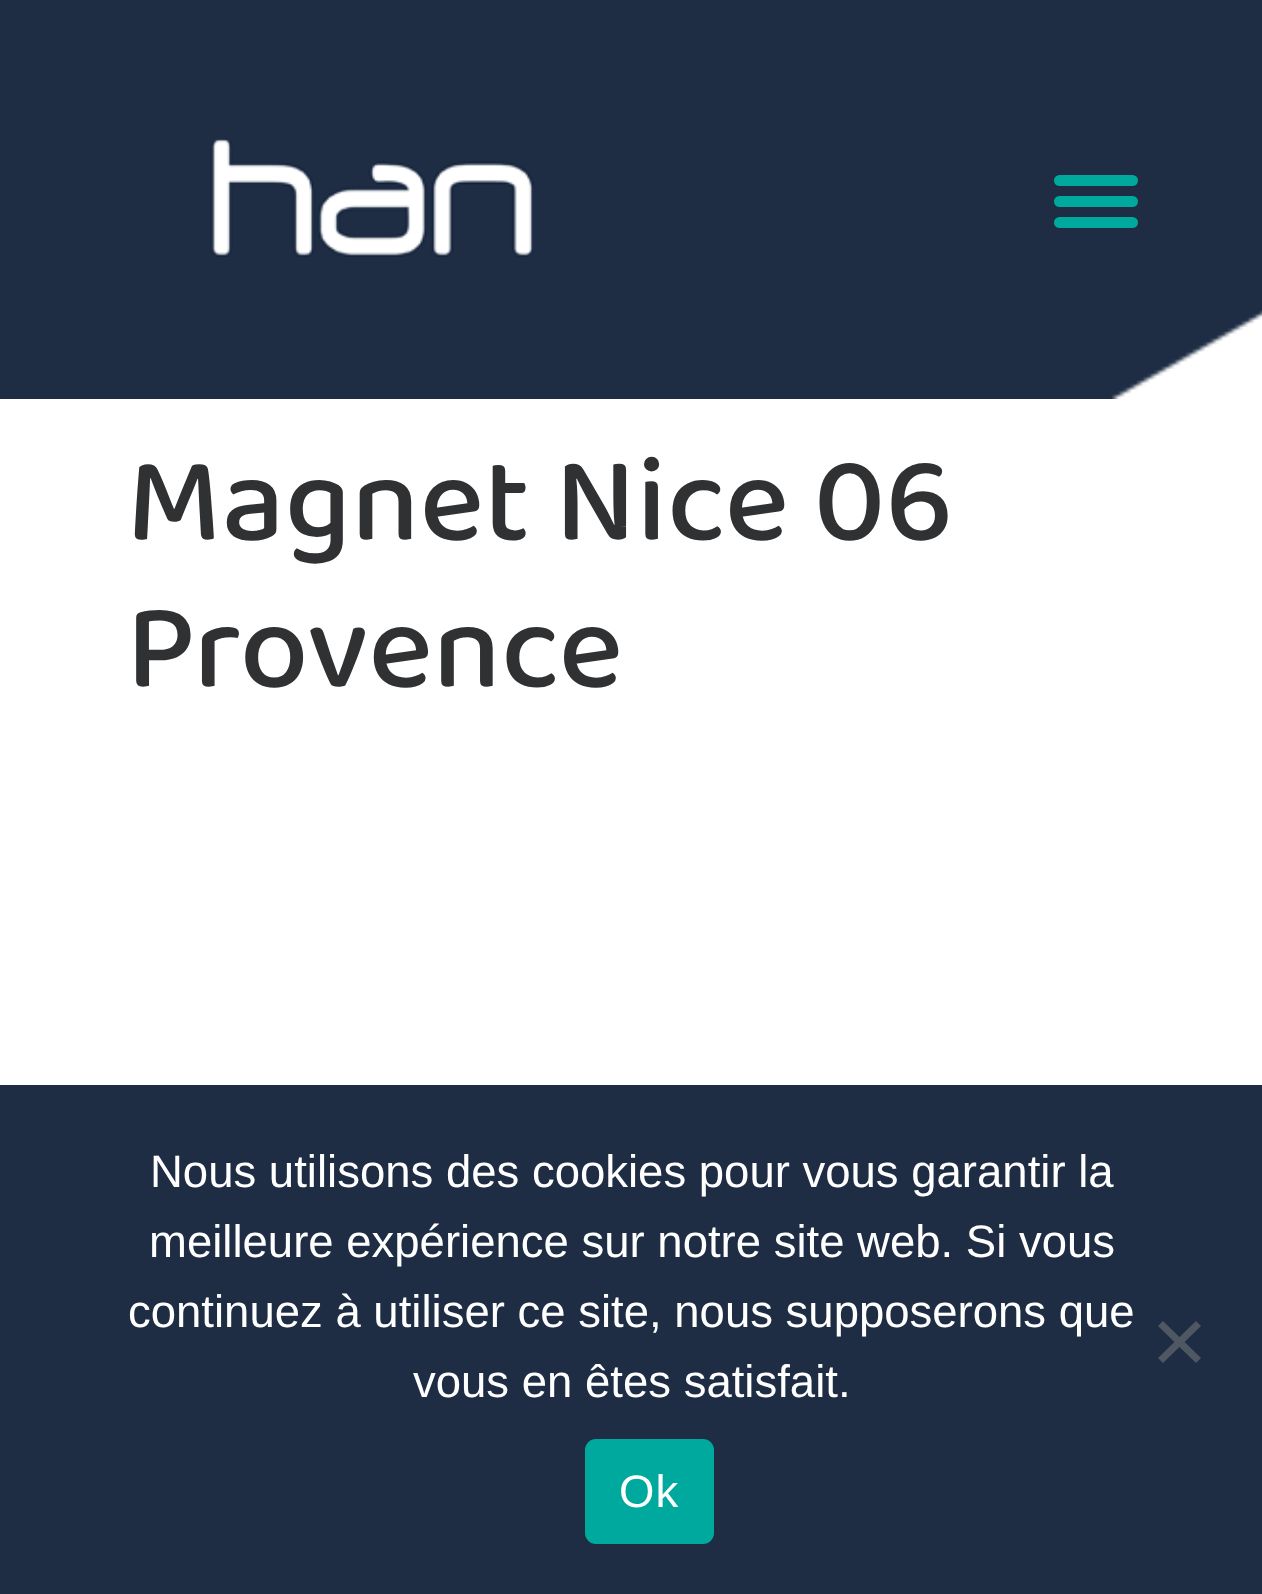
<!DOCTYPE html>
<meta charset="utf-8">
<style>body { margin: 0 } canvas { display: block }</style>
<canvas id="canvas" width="1262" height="1594"></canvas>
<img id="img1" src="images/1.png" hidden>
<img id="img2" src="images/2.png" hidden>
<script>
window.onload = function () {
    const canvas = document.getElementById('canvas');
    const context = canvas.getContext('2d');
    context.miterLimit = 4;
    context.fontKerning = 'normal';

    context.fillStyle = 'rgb(255, 255, 255)';
    context.fillRect(0, 0, 1262, 1594);
    context.drawImage(document.getElementById('img1'), 0, 0, 1262, 399);
    context.drawImage(document.getElementById('img2'), 210, 139, 324, 118);
    context.fillStyle = 'rgb(0, 169, 157)';
    context.beginPath();
    context.roundRect(1054, 196, 84, 11, 5.5);
    context.fill();
    context.beginPath();
    context.roundRect(1054, 175, 84, 11, 5.5);
    context.fill();
    context.beginPath();
    context.roundRect(1054, 217, 84, 11, 5.5);
    context.fill();
    context.fillStyle = 'rgb(30, 45, 68)';
    context.fillRect(0, 1085, 1262, 509);
    context.fillStyle = 'rgb(79, 87, 98)';
    context.beginPath();
    context.moveTo(1196, 1321);
    context.lineTo(1201, 1326);
    context.lineTo(1163, 1363);
    context.lineTo(1158, 1358);
    context.closePath();
    context.fill();
    context.beginPath();
    context.moveTo(1158, 1326);
    context.lineTo(1163, 1321);
    context.lineTo(1201, 1358);
    context.lineTo(1196, 1363);
    context.closePath();
    context.fill();
    context.fillStyle = 'rgb(0, 169, 157)';
    context.beginPath();
    context.roundRect(585, 1439, 129, 105, 11);
    context.fill();
    context.font = '500 122.5px "Baloo 2"';
    context.fillStyle = 'rgb(48, 49, 51)';
    context.fillText('Magnet Nice 06', 126, 539);
    context.fillText('Provence', 126, 686);
    context.font = '45.5px Liberation Sans';
    context.fillStyle = 'rgb(255, 255, 255)';
    context.fillText('Nous utilisons des cookies pour vous garantir la', 150, 1187);
    context.fillText('meilleure expérience sur notre site web. Si vous', 149, 1257);
    context.fillText('continuez à utiliser ce site, nous supposerons que', 128, 1327);
    context.fillText('vous en êtes satisfait.', 413, 1397);
    context.letterSpacing = '1px';
    context.fillText('Ok', 619, 1507);
};
</script>
